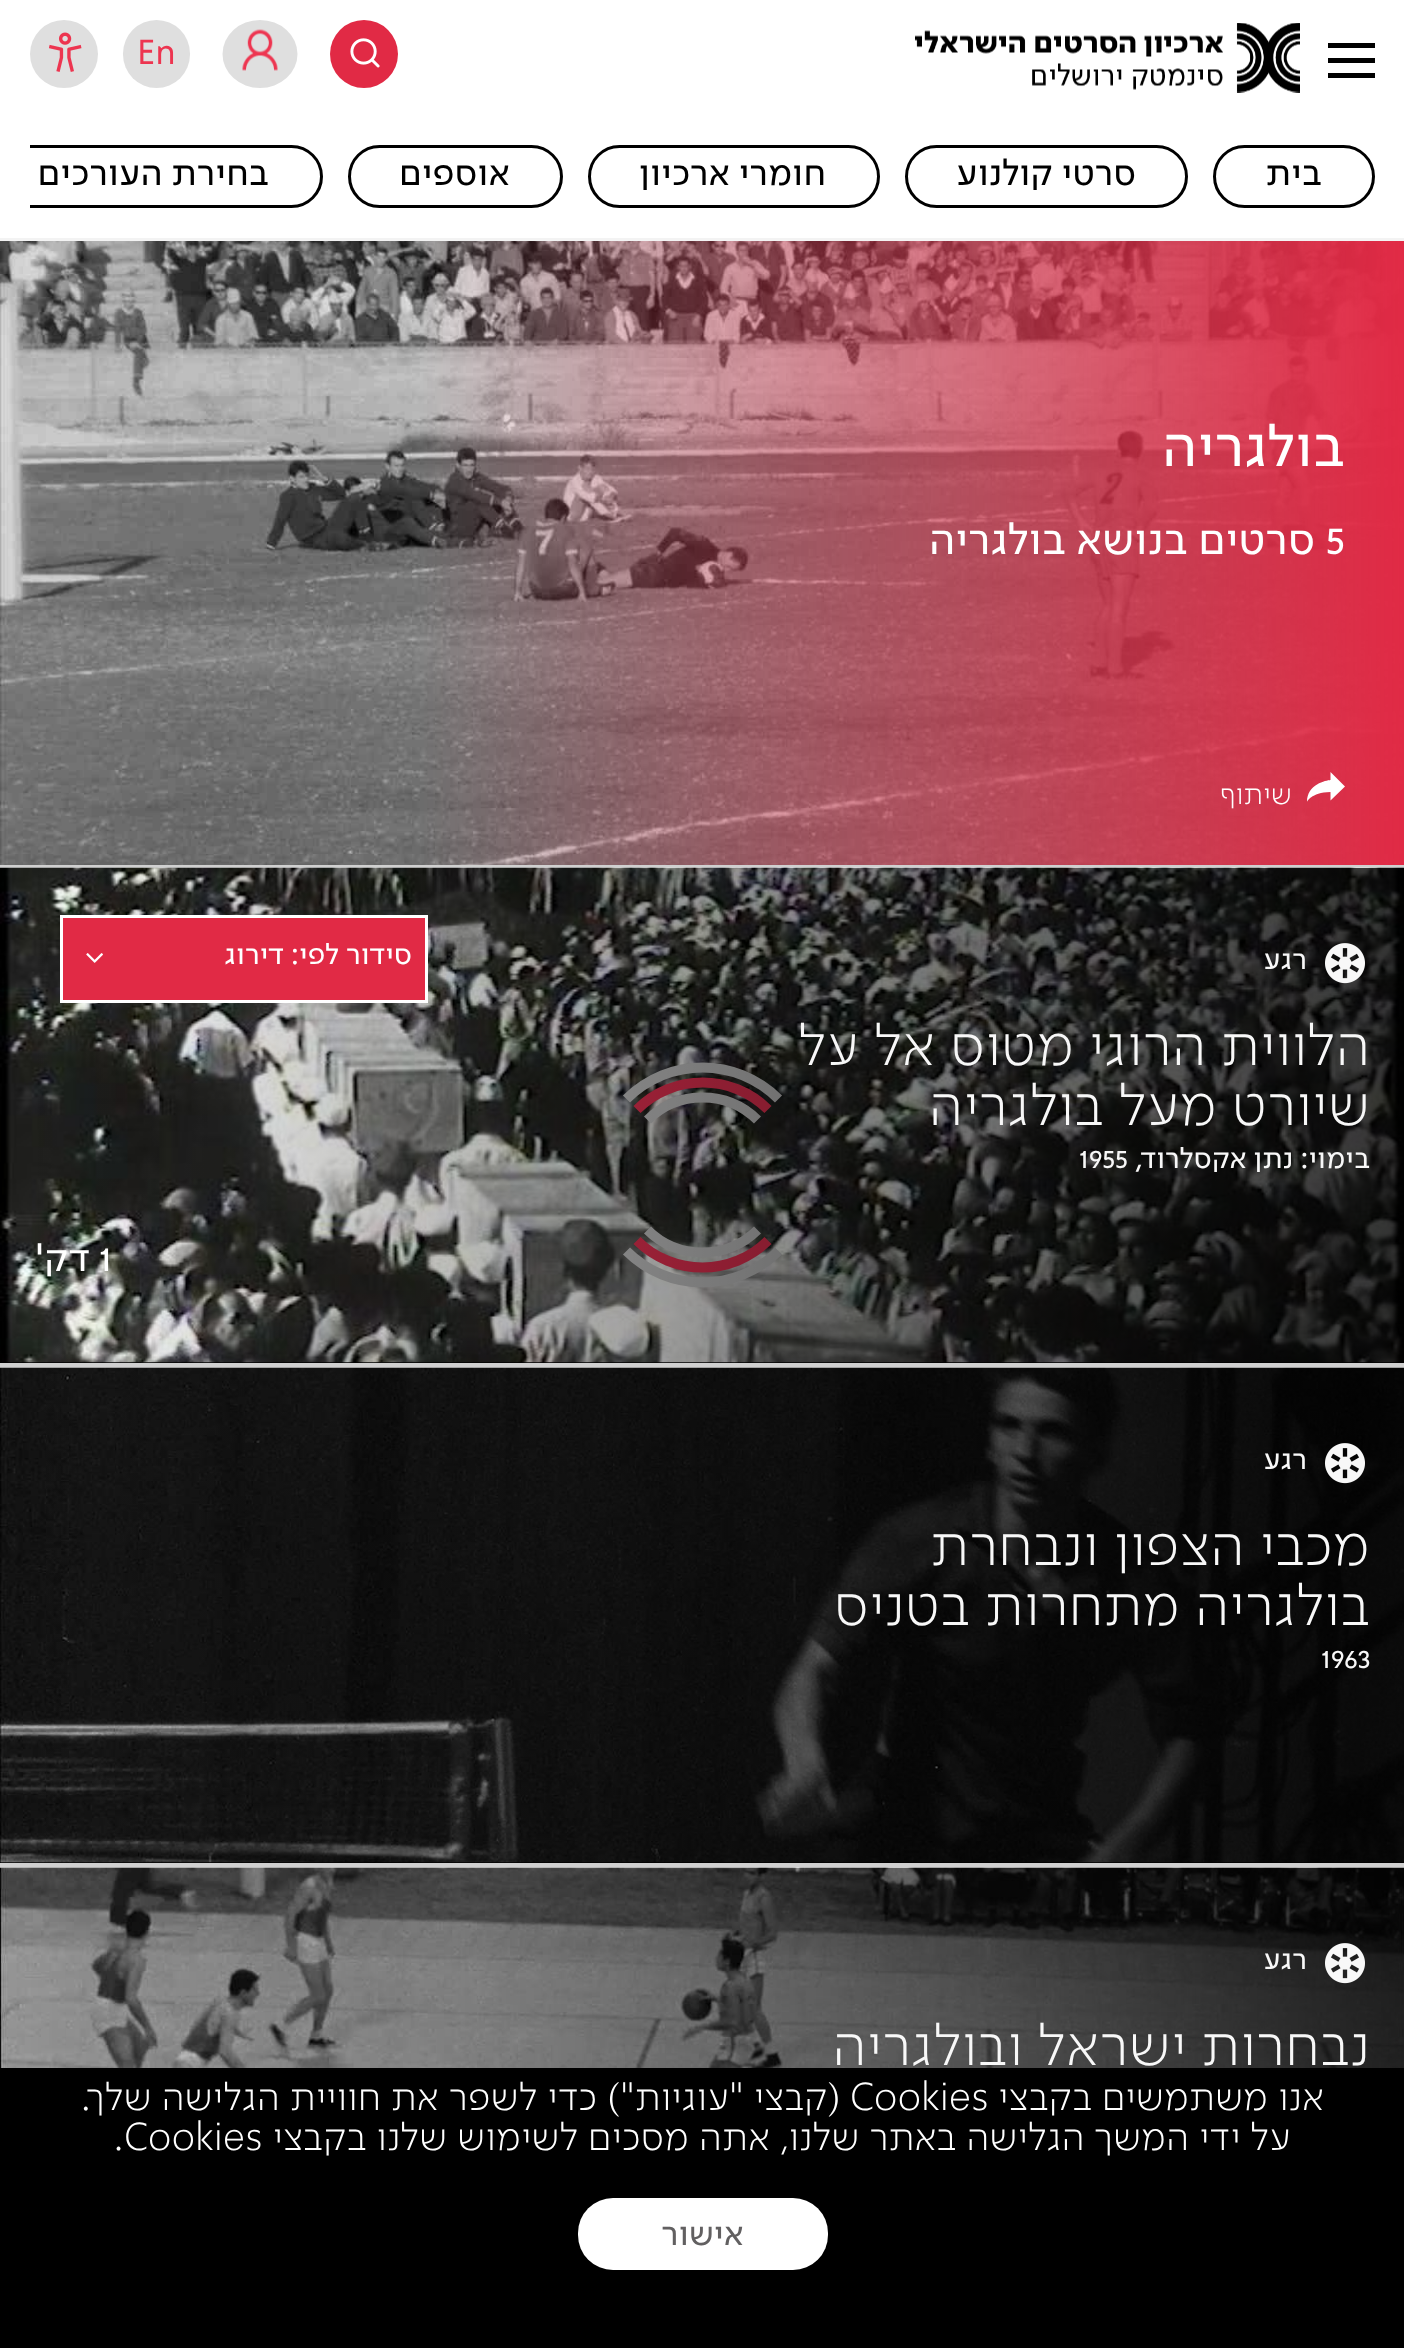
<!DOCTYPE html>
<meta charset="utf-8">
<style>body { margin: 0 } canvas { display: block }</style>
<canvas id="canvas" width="1404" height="2348"></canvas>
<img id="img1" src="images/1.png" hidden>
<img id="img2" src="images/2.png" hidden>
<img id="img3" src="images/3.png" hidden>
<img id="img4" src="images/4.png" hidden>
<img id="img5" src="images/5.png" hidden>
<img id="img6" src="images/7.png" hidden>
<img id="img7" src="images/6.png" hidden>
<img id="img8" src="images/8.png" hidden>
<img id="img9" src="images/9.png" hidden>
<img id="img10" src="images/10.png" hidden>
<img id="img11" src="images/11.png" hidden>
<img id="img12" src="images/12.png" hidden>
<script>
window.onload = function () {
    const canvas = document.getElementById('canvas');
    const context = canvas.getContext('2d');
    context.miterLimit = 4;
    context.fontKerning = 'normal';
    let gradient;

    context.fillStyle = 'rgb(255, 255, 255)';
    context.fillRect(0, 0, 1404, 2348);
    context.fillStyle = 'rgb(243, 243, 243)';
    context.fillRect(0, 238, 1404, 3);
    context.fillStyle = 'rgb(0, 0, 0)';
    context.fillRect(1328, 43, 47, 5);
    context.fillRect(1328, 58, 47, 5);
    context.fillRect(1328, 73, 47, 5);
    context.drawImage(document.getElementById('img1'), 915, 23, 385, 70);
    context.fillStyle = 'rgb(225, 42, 69)';
    context.beginPath();
    context.arc(364, 54, 34, 0, 2 * Math.PI);
    context.fill();
    context.drawImage(document.getElementById('img2'), 350, 38, 30, 30);
    context.fillStyle = 'rgb(223, 223, 223)';
    context.beginPath();
    context.ellipse(260, 54, 37.5, 34, 0, 0, 2 * Math.PI);
    context.fill();
    context.drawImage(document.getElementById('img3'), 242, 29, 36, 42);
    context.beginPath();
    context.roundRect(123, 20, 67, 68, 33.5);
    context.fill();
    context.beginPath();
    context.arc(64, 54, 34, 0, 2 * Math.PI);
    context.fill();
    context.drawImage(document.getElementById('img4'), 49, 32, 33, 40);
    context.beginPath();
    context.roundRect(1214.5, 146.5, 159, 60, 30);
    context.strokeStyle = 'rgb(0, 0, 0)';
    context.lineWidth = 3;
    context.stroke();
    context.beginPath();
    context.roundRect(906.5, 146.5, 280, 60, 30);
    context.stroke();
    context.beginPath();
    context.roundRect(589.5, 146.5, 289, 60, 30);
    context.stroke();
    context.beginPath();
    context.roundRect(349.5, 146.5, 212, 60, 30);
    context.stroke();
    context.save();
    context.beginPath();
    context.rect(30, 145, 1345, 63);
    context.clip();
    context.beginPath();
    context.roundRect(-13.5, 146.5, 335, 60, 30);
    context.stroke();
    context.restore();
    context.drawImage(document.getElementById('img5'), 0, 241, 1404, 624);
    context.fillStyle = 'rgb(255, 255, 255)';
    context.beginPath();
    context.moveTo(1345, 786.5);
    context.lineTo(1330.5, 772);
    context.lineTo(1330.5, 780);
    context.bezierCurveTo(1326, 780.5, 1307, 784, 1307, 802);
    context.bezierCurveTo(1307, 802, 1310.5, 792.5, 1330.5, 792);
    context.lineTo(1330.5, 800.5);
    context.closePath();
    context.fill('evenodd');
    context.fillStyle = 'rgb(0, 0, 0)';
    context.fillRect(0, 1362, 1404, 1);
    context.fillStyle = 'rgb(208, 208, 208)';
    context.fillRect(0, 865, 1404, 3);
    context.drawImage(document.getElementById('img6'), 0, 867, 1404, 496);
    context.beginPath();
    context.moveTo(626.5, 1099);
    context.bezierCurveTo(668.5, 1057, 736.5, 1057, 778.5, 1099);
    context.strokeStyle = 'rgb(204, 204, 204)';
    context.lineWidth = 10;
    context.stroke();
    context.beginPath();
    context.moveTo(778.5, 1251);
    context.bezierCurveTo(736.5, 1293, 668.5, 1293, 626.5, 1251);
    context.stroke();
    context.beginPath();
    context.moveTo(637, 1109.5);
    context.bezierCurveTo(673, 1073.5, 732, 1073.5, 768, 1109.5);
    context.strokeStyle = 'rgb(240, 51, 85)';
    context.stroke();
    context.beginPath();
    context.moveTo(768, 1240.5);
    context.bezierCurveTo(732, 1276.5, 673, 1276.5, 637, 1240.5);
    context.stroke();
    context.beginPath();
    context.moveTo(647.5, 1120);
    context.bezierCurveTo(678, 1090, 727, 1090, 757.5, 1120);
    context.strokeStyle = 'rgb(204, 204, 204)';
    context.stroke();
    context.beginPath();
    context.moveTo(757.5, 1230);
    context.bezierCurveTo(727, 1260, 678, 1260, 647.5, 1230);
    context.stroke();
    gradient = context.createLinearGradient(0, 1115, 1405, 1115);
    gradient.addColorStop(0, 'rgba(0, 0, 0, 0)');
    gradient.addColorStop(1, 'rgba(0, 0, 0, 0.8)');
    context.fillStyle = gradient;
    context.fillRect(38, 868, 1366, 495);
    context.fillStyle = 'rgb(225, 42, 69)';
    context.beginPath();
    context.rect(61.5, 916.5, 365, 85);
    context.fill();
    context.strokeStyle = 'rgb(255, 255, 255)';
    context.lineWidth = 3;
    context.stroke();
    context.drawImage(document.getElementById('img7'), 86, 953, 17, 10);
    context.fillStyle = 'rgb(208, 208, 208)';
    context.fillRect(0, 1363, 1404, 5);
    context.drawImage(document.getElementById('img8'), 1325, 943, 40, 41);
    context.fillStyle = 'rgb(0, 0, 0)';
    context.fillRect(0, 1862, 1404, 1);
    context.fillStyle = 'rgb(208, 208, 208)';
    context.fillRect(0, 1863, 1404, 5);
    context.drawImage(document.getElementById('img9'), 0, 1367, 1404, 496);
    gradient = context.createLinearGradient(0, 1615, 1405, 1615);
    gradient.addColorStop(0, 'rgba(0, 0, 0, 0)');
    gradient.addColorStop(1, 'rgba(0, 0, 0, 0.8)');
    context.fillStyle = gradient;
    context.fillRect(38, 1368, 1366, 495);
    context.drawImage(document.getElementById('img10'), 1325, 1443, 40, 41);
    context.drawImage(document.getElementById('img11'), 0, 1867, 1404, 201);
    context.drawImage(document.getElementById('img12'), 1325, 1943, 40, 41);
    context.fillStyle = 'rgb(0, 0, 0)';
    context.fillRect(0, 2068, 1404, 280);
    context.fillStyle = 'rgb(255, 255, 255)';
    context.beginPath();
    context.roundRect(578, 2198, 250, 72, 35);
    context.fill();
    context.font = '35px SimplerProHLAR';
    context.fillStyle = 'rgb(237, 53, 80)';
    context.fillText('En', 137, 64);
    context.direction = 'rtl';
    context.font = '37.5px SimplerProHLAR';
    context.fillStyle = 'rgb(0, 0, 0)';
    context.fillText('בית', 1322, 185);
    context.fillText('סרטי קולנוע', 1136, 185);
    context.fillText('חומרי ארכיון', 826, 185);
    context.fillText('אוספים', 510, 185);
    context.fillText('בחירת העורכים', 269, 185);
    context.font = '60px SimplerProHLAR';
    context.fillStyle = 'rgb(255, 255, 255)';
    context.fillText('בולגריה', 1345, 466);
    context.direction = 'ltr';
    context.font = '45px SimplerProHLAR';
    context.fillText('5', 1326, 554);
    context.direction = 'rtl';
    context.fillText('סרטים בנושא בולגריה', 1315, 554);
    context.font = '300 30px SimplerProHLAR';
    context.fillText('שיתוף', 1292, 804);
    context.font = '30px SimplerProHLAR';
    context.fillText('סידור לפי: דירוג', 412, 964);
    context.fillStyle = 'rgb(248, 248, 248)';
    context.fillText('רגע', 1307, 969);
    context.font = '300 60px SimplerProHLAR';
    context.fillText('הלווית הרוגי מטוס אל על', 1370, 1065);
    context.fillText('שיורט מעל בולגריה', 1370, 1125);
    context.font = '30px SimplerProHLAR';
    context.fillText('בימוי: נתן אקסלרוד,', 1370, 1168);
    context.direction = 'ltr';
    context.fillText('1955', 1079, 1168);
    context.font = '40px SimplerProHLAR';
    context.fillStyle = 'rgb(255, 255, 255)';
    context.fillText('1', 99, 1271);
    context.direction = 'rtl';
    context.fillText('דק\'', 90, 1271);
    context.font = '30px SimplerProHLAR';
    context.fillStyle = 'rgb(248, 248, 248)';
    context.fillText('רגע', 1307, 1469);
    context.font = '300 60px SimplerProHLAR';
    context.fillText('מכבי הצפון ונבחרת', 1370, 1565);
    context.fillText('בולגריה מתחרות בטניס', 1370, 1625);
    context.direction = 'ltr';
    context.font = '30px SimplerProHLAR';
    context.fillText('1963', 1321, 1668);
    context.direction = 'rtl';
    context.fillText('רגע', 1307, 1969);
    context.font = '300 60px SimplerProHLAR';
    context.fillText('נבחרות ישראל ובולגריה', 1370, 2065);
    context.font = '300 40px SimplerProHLAR';
    context.fillStyle = 'rgb(255, 255, 255)';
    context.fillText('אנו משתמשים בקבצי', 1324, 2110);
    context.direction = 'ltr';
    context.fillText('Cookies', 850, 2110);
    context.direction = 'rtl';
    context.fillText('(קבצי "עוגיות") כדי לשפר את חוויית הגלישה שלך.', 841, 2110);
    context.fillText('על ידי המשך הגלישה באתר שלנו, אתה מסכים לשימוש שלנו בקבצי', 1291, 2150);
    context.direction = 'ltr';
    context.fillText('.Cookies', 114, 2150);
    context.direction = 'rtl';
    context.font = '35px SimplerProHLAR';
    context.fillStyle = 'rgb(98, 96, 97)';
    context.fillText('אישור', 744, 2245);
};
</script>
